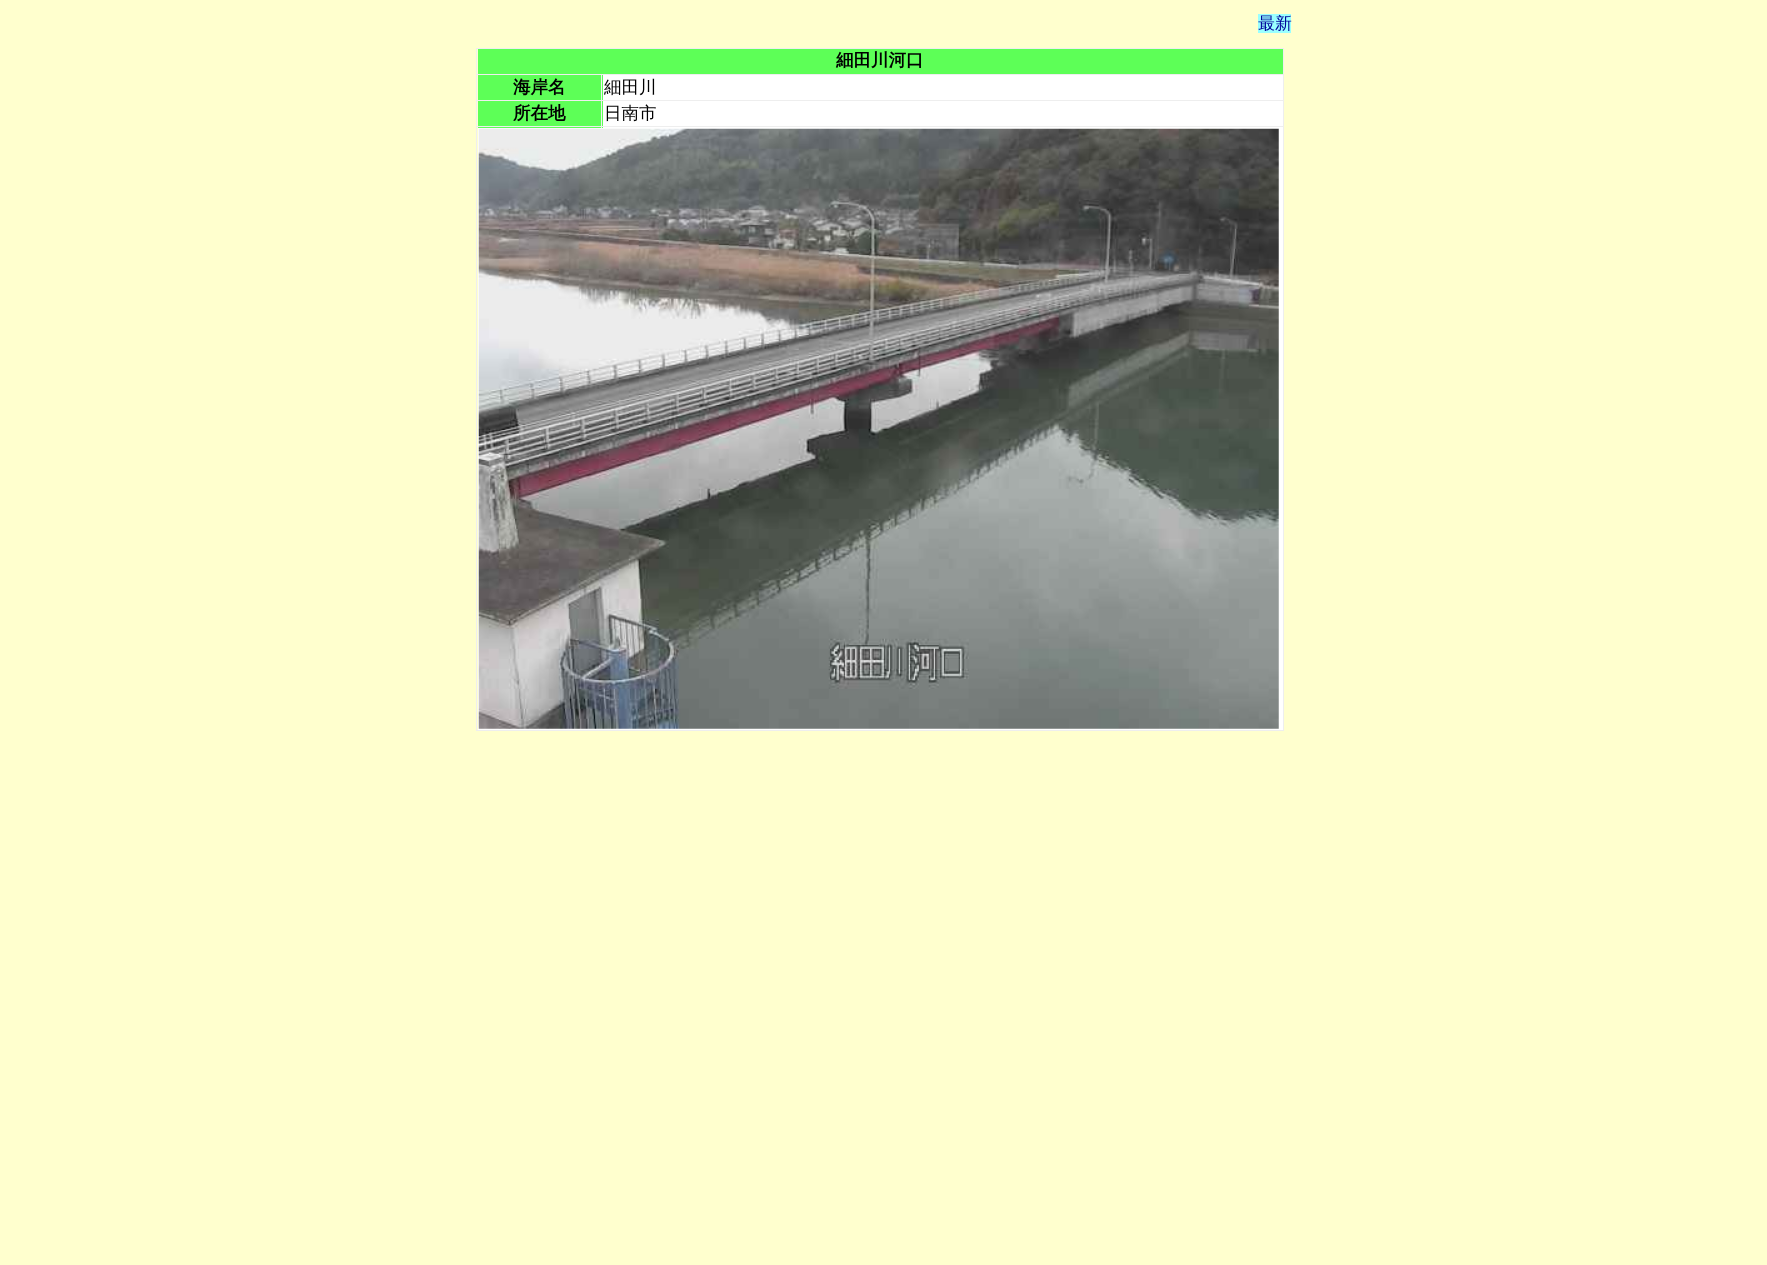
<!DOCTYPE html>
<meta charset="utf-8">
<style>body { margin: 0 } canvas { display: block }</style>
<canvas id="canvas" width="1767" height="1265"></canvas>
<img id="img1" src="images/1.png" hidden>
<script>
window.onload = function () {
    const canvas = document.getElementById('canvas');
    const context = canvas.getContext('2d');
    context.miterLimit = 4;
    context.fontKerning = 'normal';

    context.fillStyle = 'rgb(255, 255, 206)';
    context.fillRect(0, 0, 1767, 1265);
    context.fillStyle = 'rgb(153, 255, 255)';
    context.fillRect(1258, 14, 33, 19);
    context.fillStyle = 'rgb(93, 255, 87)';
    context.fillRect(478, 49, 805, 25);
    context.fillStyle = 'rgb(238, 238, 238)';
    context.fillRect(476, 48, 808, 1);
    context.fillRect(601, 74, 683, 1);
    context.fillRect(601, 100, 683, 1);
    context.fillStyle = 'rgb(93, 255, 87)';
    context.fillRect(478, 101, 125, 27);
    context.fillStyle = 'rgb(255, 255, 255)';
    context.fillRect(603, 101, 680, 27);
    context.fillStyle = 'rgb(238, 238, 238)';
    context.fillRect(476, 126, 808, 1);
    context.fillRect(1283, 126, 1, 605);
    context.fillRect(1283, 100, 1, 28);
    context.fillRect(1283, 74, 1, 27);
    context.fillRect(1283, 48, 1, 27);
    context.fillStyle = 'rgb(93, 255, 87)';
    context.fillRect(478, 75, 125, 25);
    context.fillStyle = 'rgb(238, 238, 238)';
    context.fillRect(601, 100, 1, 28);
    context.fillRect(476, 100, 127, 1);
    context.fillRect(601, 74, 1, 27);
    context.fillRect(476, 74, 127, 1);
    context.fillRect(476, 730, 808, 1);
    context.fillRect(476, 126, 1, 605);
    context.fillRect(476, 100, 1, 28);
    context.fillRect(476, 74, 1, 27);
    context.fillRect(476, 48, 1, 27);
    context.fillStyle = 'rgb(255, 255, 255)';
    context.fillRect(603, 75, 680, 25);
    context.fillRect(478, 128, 805, 602);
    context.drawImage(document.getElementById('img1'), 478, 128, 801, 601);
    context.font = '500 17px WenQuanYi Zen Hei';
    context.fillStyle = 'rgb(0, 0, 153)';
    context.fillText('最新', 1258, 29);
    context.font = 'bold 17.5px WenQuanYi Zen Hei';
    context.fillStyle = 'rgb(0, 0, 0)';
    context.fillText('細田川河口', 836, 66);
    context.fillText('海岸名', 513, 93);
    context.font = '500 17.5px WenQuanYi Zen Hei';
    context.fillText('細田川', 604, 93);
    context.font = 'bold 17.5px WenQuanYi Zen Hei';
    context.fillText('所在地', 513, 119);
    context.font = '500 17.5px WenQuanYi Zen Hei';
    context.fillText('日南市', 604, 119);
};
</script>
